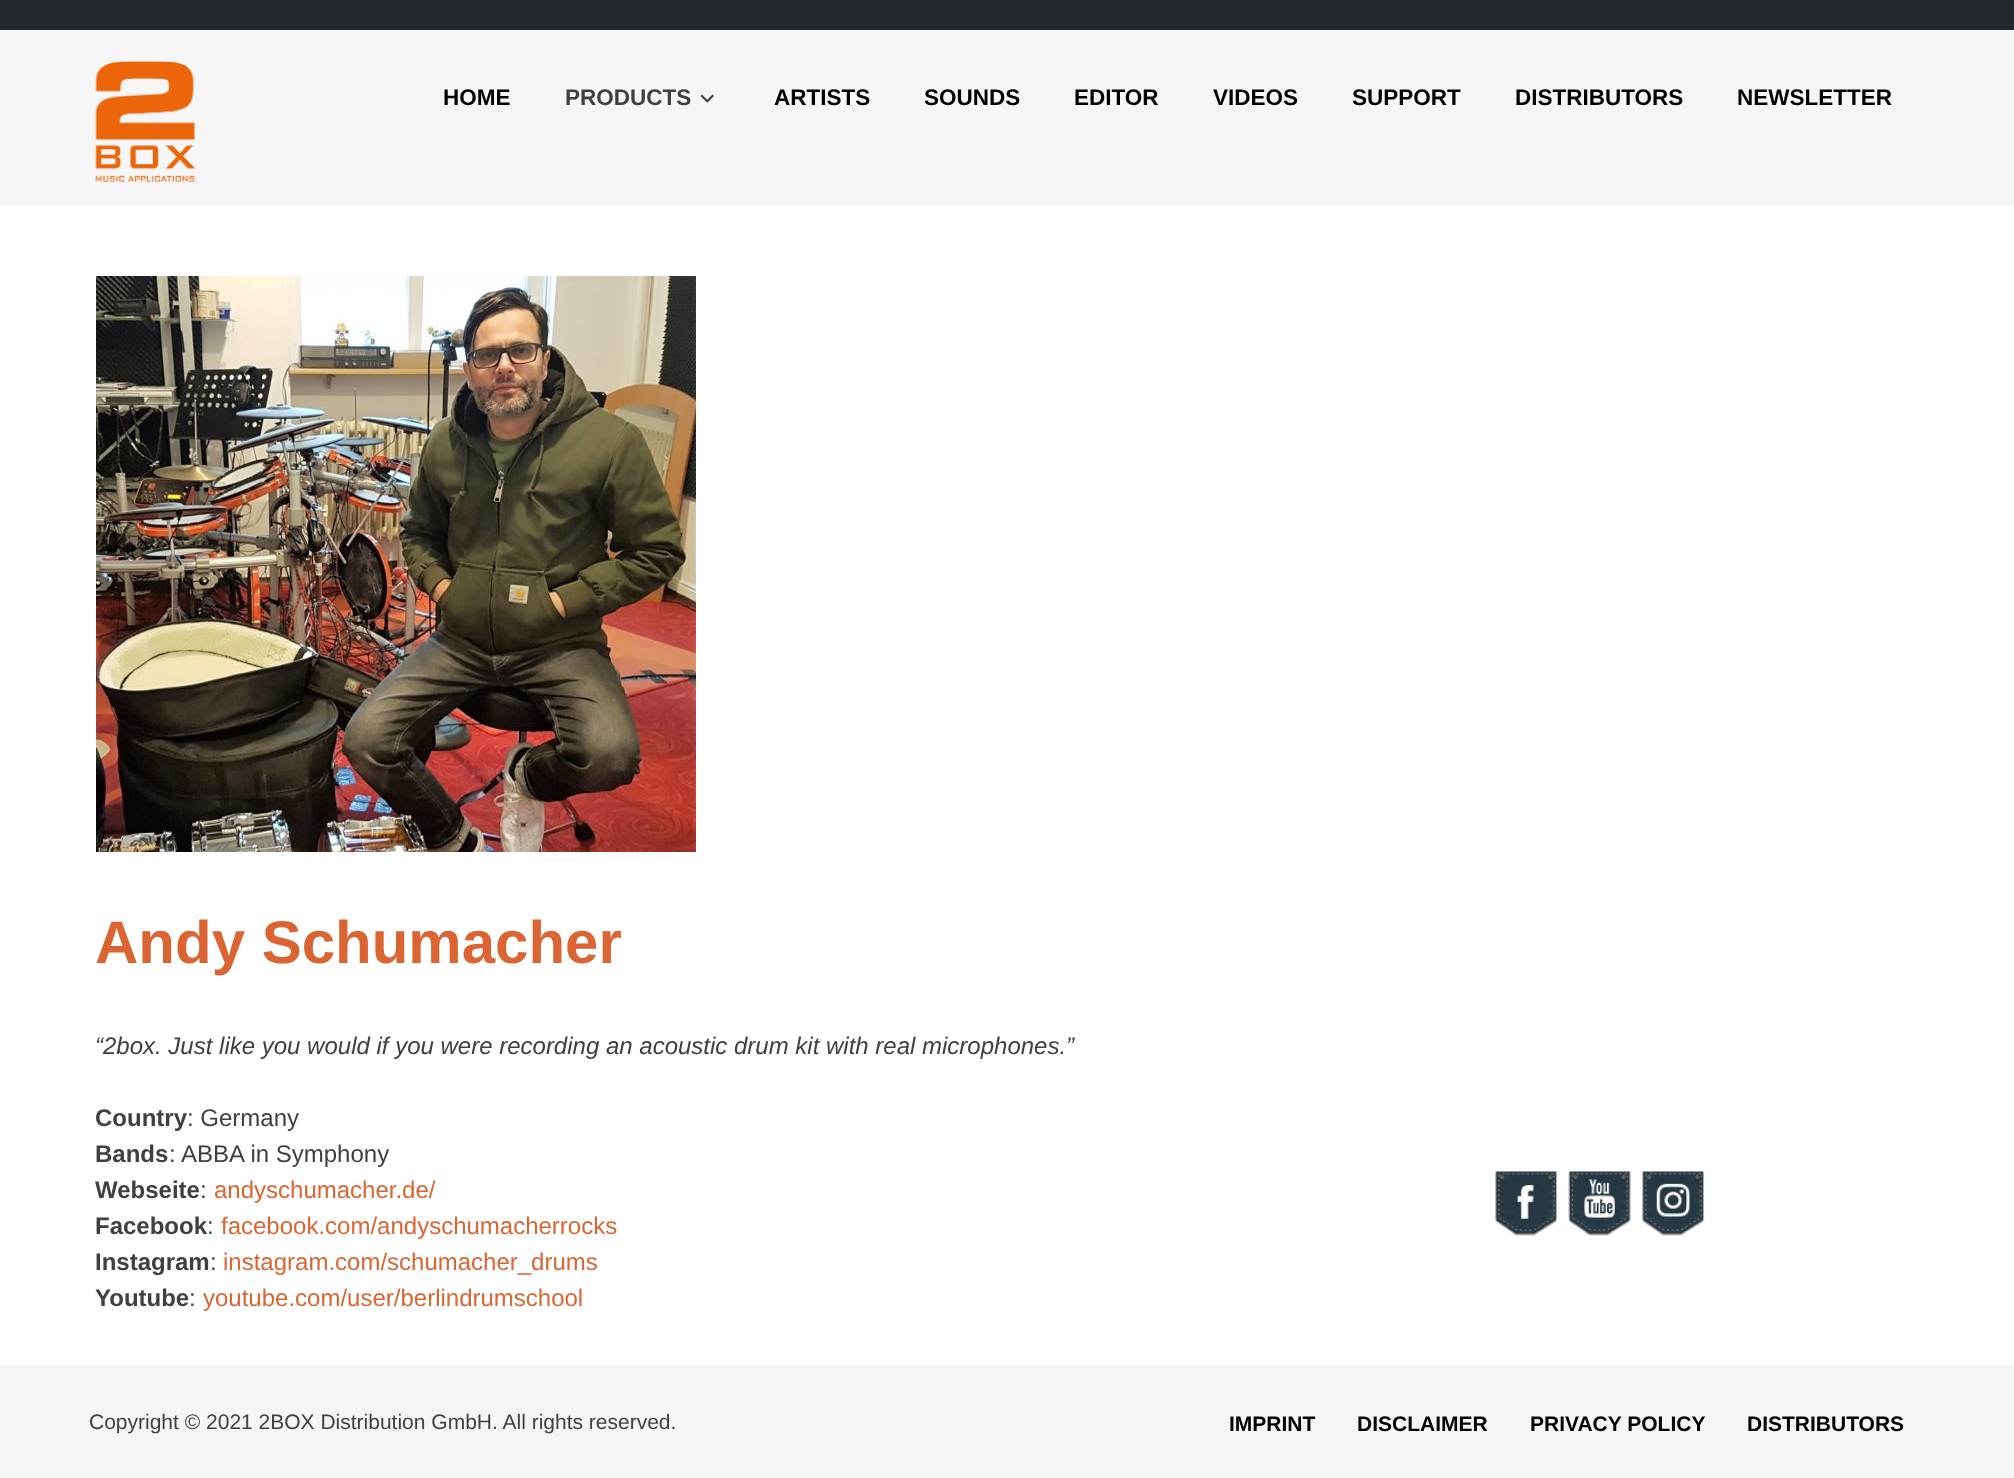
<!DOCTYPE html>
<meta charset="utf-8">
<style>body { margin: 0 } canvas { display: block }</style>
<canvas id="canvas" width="2014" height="1478"></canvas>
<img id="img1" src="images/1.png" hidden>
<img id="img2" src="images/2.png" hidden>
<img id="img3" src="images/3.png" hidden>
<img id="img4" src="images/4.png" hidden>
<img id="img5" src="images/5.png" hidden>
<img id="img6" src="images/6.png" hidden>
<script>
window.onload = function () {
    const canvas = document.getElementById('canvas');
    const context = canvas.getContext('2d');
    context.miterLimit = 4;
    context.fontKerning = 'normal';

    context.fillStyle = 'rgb(255, 255, 255)';
    context.fillRect(0, 0, 2014, 1478);
    context.fillStyle = 'rgb(246, 246, 246)';
    context.fillRect(0, 30, 2014, 176);
    context.fillStyle = 'rgb(35, 40, 45)';
    context.fillRect(0, 0, 2014, 30);
    context.drawImage(document.getElementById('img1'), 95, 61, 101, 121);
    context.drawImage(document.getElementById('img2'), 700, 94, 14, 9);
    context.drawImage(document.getElementById('img3'), 96, 276, 600, 576);
    context.fillStyle = 'rgb(246, 246, 246)';
    context.fillRect(0, 1365, 2014, 113);
    context.drawImage(document.getElementById('img4'), 1495, 1171, 63, 65);
    context.drawImage(document.getElementById('img5'), 1568, 1171, 63, 65);
    context.drawImage(document.getElementById('img6'), 1642, 1171, 63, 65);
    context.font = 'bold 22.5px Liberation Sans';
    context.fillStyle = 'rgb(0, 0, 0)';
    context.fillText('HOME', 443, 105);
    context.fillStyle = 'rgb(64, 64, 64)';
    context.fillText('PRODUCTS', 565, 105);
    context.fillStyle = 'rgb(0, 0, 0)';
    context.fillText('ARTISTS', 774, 105);
    context.fillText('SOUNDS', 924, 105);
    context.fillText('EDITOR', 1074, 105);
    context.fillText('VIDEOS', 1213, 105);
    context.fillText('SUPPORT', 1352, 105);
    context.fillText('DISTRIBUTORS', 1515, 105);
    context.fillText('NEWSLETTER', 1737, 105);
    context.font = 'bold 60px Liberation Sans';
    context.fillStyle = 'rgb(219, 101, 50)';
    context.fillText('Andy Schumacher', 95, 963);
    context.font = 'italic 24px Liberation Sans';
    context.fillStyle = 'rgb(64, 64, 64)';
    context.fillText('“2box. Just like you would if you were recording an acoustic drum kit with real microphones.”', 95, 1054);
    context.font = 'bold 24px Liberation Sans';
    context.fillText('Country', 95, 1126);
    context.font = '24px Liberation Sans';
    context.fillText(': Germany', 187, 1126);
    context.font = 'bold 24px Liberation Sans';
    context.fillText('Bands', 95, 1162);
    context.font = '24px Liberation Sans';
    context.fillText(': ABBA in Symphony', 169, 1162);
    context.font = 'bold 24px Liberation Sans';
    context.fillText('Webseite', 95, 1198);
    context.font = '24px Liberation Sans';
    context.fillText(':', 200, 1198);
    context.fillStyle = 'rgb(219, 101, 50)';
    context.fillText('andyschumacher.de/', 214, 1198);
    context.font = 'bold 24px Liberation Sans';
    context.fillStyle = 'rgb(64, 64, 64)';
    context.fillText('Facebook', 95, 1234);
    context.font = '24px Liberation Sans';
    context.fillText(':', 207, 1234);
    context.fillStyle = 'rgb(219, 101, 50)';
    context.fillText('facebook.com/andyschumacherrocks', 221, 1234);
    context.font = 'bold 24px Liberation Sans';
    context.fillStyle = 'rgb(64, 64, 64)';
    context.fillText('Instagram', 95, 1270);
    context.font = '24px Liberation Sans';
    context.fillText(':', 210, 1270);
    context.fillStyle = 'rgb(219, 101, 50)';
    context.fillText('instagram.com/schumacher_drums', 223, 1270);
    context.font = 'bold 24px Liberation Sans';
    context.fillStyle = 'rgb(64, 64, 64)';
    context.fillText('Youtube', 95, 1306);
    context.font = '24px Liberation Sans';
    context.fillText(':', 189, 1306);
    context.fillStyle = 'rgb(219, 101, 50)';
    context.fillText('youtube.com/user/berlindrumschool', 203, 1306);
    context.font = '21px Liberation Sans';
    context.fillStyle = 'rgb(64, 64, 64)';
    context.fillText('Copyright © 2021 2BOX Distribution GmbH. All rights reserved.', 89, 1429);
    context.font = 'bold 21px Liberation Sans';
    context.fillStyle = 'rgb(0, 0, 0)';
    context.fillText('IMPRINT', 1229, 1431);
    context.fillText('DISCLAIMER', 1357, 1431);
    context.fillText('PRIVACY POLICY', 1530, 1431);
    context.fillText('DISTRIBUTORS', 1747, 1431);
};
</script>
